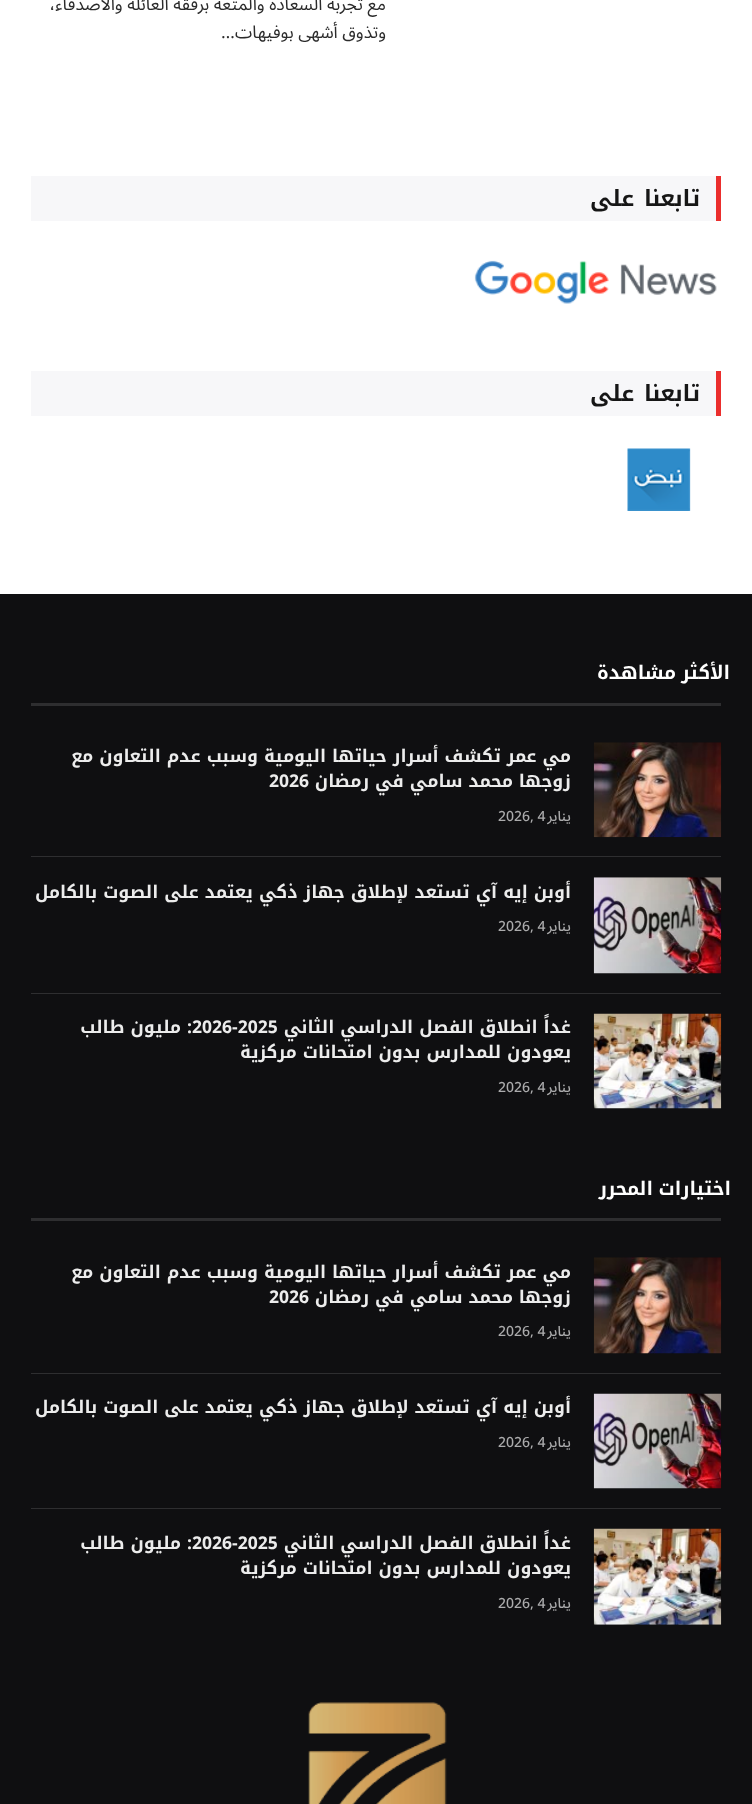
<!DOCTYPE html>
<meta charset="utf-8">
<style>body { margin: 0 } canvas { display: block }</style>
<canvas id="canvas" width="752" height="1804"></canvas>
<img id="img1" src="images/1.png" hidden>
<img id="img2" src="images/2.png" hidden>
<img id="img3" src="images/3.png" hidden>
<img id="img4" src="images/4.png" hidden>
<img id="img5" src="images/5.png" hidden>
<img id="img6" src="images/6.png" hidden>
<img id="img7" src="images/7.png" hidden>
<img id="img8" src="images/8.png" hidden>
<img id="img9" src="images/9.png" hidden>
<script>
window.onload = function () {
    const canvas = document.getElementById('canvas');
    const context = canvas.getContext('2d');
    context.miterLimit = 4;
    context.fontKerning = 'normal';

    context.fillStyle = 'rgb(255, 255, 255)';
    context.fillRect(0, 0, 752, 1804);
    context.fillStyle = 'rgb(247, 247, 249)';
    context.fillRect(31, 176, 685, 45);
    context.fillStyle = 'rgb(235, 46, 45)';
    context.fillRect(716, 176, 5, 45);
    context.drawImage(document.getElementById('img1'), 474, 260, 243, 44);
    context.fillStyle = 'rgb(247, 247, 249)';
    context.fillRect(31, 371, 685, 45);
    context.fillStyle = 'rgb(235, 46, 45)';
    context.fillRect(716, 371, 5, 45);
    context.drawImage(document.getElementById('img2'), 627, 448, 64, 63);
    context.fillStyle = 'rgb(15, 15, 17)';
    context.fillRect(0, 594, 752, 1210);
    context.fillStyle = 'rgb(46, 46, 48)';
    context.fillRect(31, 703, 690, 3);
    context.drawImage(document.getElementById('img3'), 593, 742, 129, 96);
    context.fillRect(31, 856, 690, 1);
    context.drawImage(document.getElementById('img4'), 593, 877, 129, 97);
    context.fillRect(31, 993, 690, 1);
    context.drawImage(document.getElementById('img5'), 593, 1013, 129, 96);
    context.fillRect(31, 1218, 690, 3);
    context.drawImage(document.getElementById('img6'), 593, 1257, 129, 97);
    context.fillRect(31, 1373, 690, 1);
    context.drawImage(document.getElementById('img7'), 593, 1393, 129, 96);
    context.fillRect(31, 1508, 690, 1);
    context.drawImage(document.getElementById('img8'), 593, 1528, 129, 97);
    context.drawImage(document.getElementById('img9'), 308, 1702, 139, 102);
    context.direction = 'rtl';
    context.font = '17.5px Noto Sans Arabic';
    context.fillStyle = 'rgb(43, 43, 43)';
    context.fillText('مع تجربة السعادة والمتعة برفقة العائلة والأصدقاء،', 386, 10);
    context.fillText('وتذوق أشهى بوفيهات…', 386, 38);
    context.letterSpacing = '-0.25px';
    context.wordSpacing = '2px';
    context.font = 'bold 22.5px Noto Kufi Arabic';
    context.fillStyle = 'rgb(22, 22, 22)';
    context.fillText('تابعنا على', 700, 206);
    context.fillText('تابعنا على', 700, 401);
    context.letterSpacing = '0.75px';
    context.wordSpacing = '-1px';
    context.font = 'bold 18.75px Noto Kufi Arabic';
    context.fillStyle = 'rgb(255, 255, 255)';
    context.fillText('الأكثر مشاهدة', 730, 679);
    context.letterSpacing = '0px';
    context.wordSpacing = '0px';
    context.font = 'bold 17.5px Noto Kufi Arabic';
    context.fillStyle = 'rgb(236, 236, 236)';
    context.fillText('مي عمر تكشف أسرار حياتها اليومية وسبب عدم التعاون مع', 571, 762);
    context.fillText('زوجها محمد سامي في رمضان', 571, 787);
    context.direction = 'ltr';
    context.fillText('2026', 269, 787);
    context.direction = 'rtl';
    context.font = '500 14px Noto Sans Arabic';
    context.fillStyle = 'rgb(171, 171, 172)';
    context.fillText('يناير', 571, 821);
    context.direction = 'ltr';
    context.fillText('2026, 4', 498, 821);
    context.direction = 'rtl';
    context.font = 'bold 17.5px Noto Kufi Arabic';
    context.fillStyle = 'rgb(236, 236, 236)';
    context.fillText('أوبن إيه آي تستعد لإطلاق جهاز ذكي يعتمد على الصوت بالكامل', 571, 898);
    context.font = '500 14px Noto Sans Arabic';
    context.fillStyle = 'rgb(171, 171, 172)';
    context.fillText('يناير', 571, 931);
    context.direction = 'ltr';
    context.fillText('2026, 4', 498, 931);
    context.direction = 'rtl';
    context.font = 'bold 17.5px Noto Kufi Arabic';
    context.fillStyle = 'rgb(236, 236, 236)';
    context.fillText('غداً انطلاق الفصل الدراسي الثاني', 571, 1033);
    context.direction = 'ltr';
    context.fillText('2026-2025', 192, 1033);
    context.direction = 'rtl';
    context.fillText(': مليون طالب', 192, 1033);
    context.fillText('يعودون للمدارس بدون امتحانات مركزية', 571, 1058);
    context.font = '500 14px Noto Sans Arabic';
    context.fillStyle = 'rgb(171, 171, 172)';
    context.fillText('يناير', 571, 1092);
    context.direction = 'ltr';
    context.fillText('2026, 4', 498, 1092);
    context.letterSpacing = '0.75px';
    context.wordSpacing = '-1px';
    context.direction = 'rtl';
    context.font = 'bold 18.75px Noto Kufi Arabic';
    context.fillStyle = 'rgb(255, 255, 255)';
    context.fillText('اختيارات المحرر', 731, 1195);
    context.letterSpacing = '0px';
    context.wordSpacing = '0px';
    context.font = 'bold 17.5px Noto Kufi Arabic';
    context.fillStyle = 'rgb(236, 236, 236)';
    context.fillText('مي عمر تكشف أسرار حياتها اليومية وسبب عدم التعاون مع', 571, 1278);
    context.fillText('زوجها محمد سامي في رمضان', 571, 1303);
    context.direction = 'ltr';
    context.fillText('2026', 269, 1303);
    context.direction = 'rtl';
    context.font = '500 14px Noto Sans Arabic';
    context.fillStyle = 'rgb(171, 171, 172)';
    context.fillText('يناير', 571, 1336);
    context.direction = 'ltr';
    context.fillText('2026, 4', 498, 1336);
    context.direction = 'rtl';
    context.font = 'bold 17.5px Noto Kufi Arabic';
    context.fillStyle = 'rgb(236, 236, 236)';
    context.fillText('أوبن إيه آي تستعد لإطلاق جهاز ذكي يعتمد على الصوت بالكامل', 571, 1413);
    context.font = '500 14px Noto Sans Arabic';
    context.fillStyle = 'rgb(171, 171, 172)';
    context.fillText('يناير', 571, 1447);
    context.direction = 'ltr';
    context.fillText('2026, 4', 498, 1447);
    context.direction = 'rtl';
    context.font = 'bold 17.5px Noto Kufi Arabic';
    context.fillStyle = 'rgb(236, 236, 236)';
    context.fillText('غداً انطلاق الفصل الدراسي الثاني', 571, 1549);
    context.direction = 'ltr';
    context.fillText('2026-2025', 192, 1549);
    context.direction = 'rtl';
    context.fillText(': مليون طالب', 192, 1549);
    context.fillText('يعودون للمدارس بدون امتحانات مركزية', 571, 1574);
    context.font = '500 14px Noto Sans Arabic';
    context.fillStyle = 'rgb(171, 171, 172)';
    context.fillText('يناير', 571, 1608);
    context.direction = 'ltr';
    context.fillText('2026, 4', 498, 1608);
};
</script>
